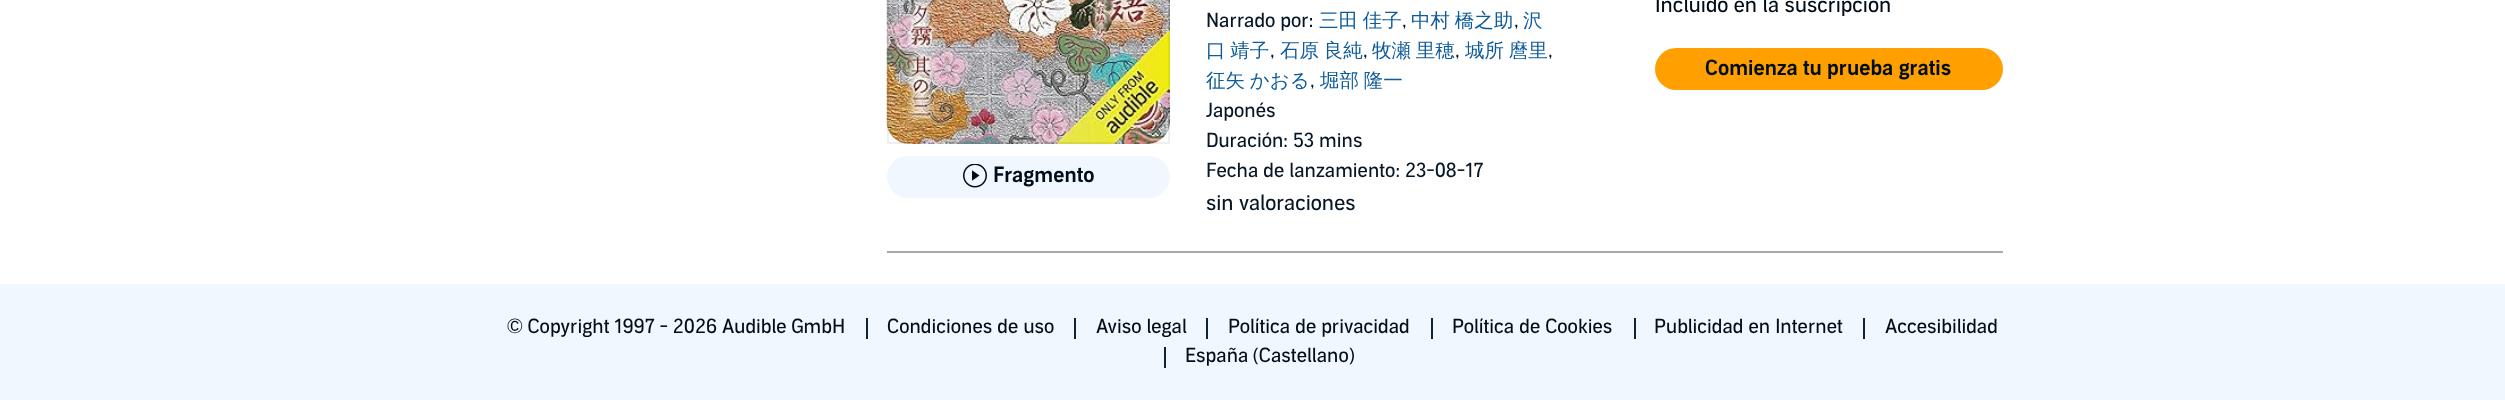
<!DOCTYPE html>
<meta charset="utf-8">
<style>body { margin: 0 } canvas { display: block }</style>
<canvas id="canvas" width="2505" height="400"></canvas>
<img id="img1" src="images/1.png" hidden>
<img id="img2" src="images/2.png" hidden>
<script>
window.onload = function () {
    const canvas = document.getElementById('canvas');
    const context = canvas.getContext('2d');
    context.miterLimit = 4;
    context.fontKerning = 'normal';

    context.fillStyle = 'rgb(255, 255, 255)';
    context.fillRect(0, 0, 2505, 400);
    context.drawImage(document.getElementById('img1'), 886, 0, 284, 144);
    context.strokeStyle = 'rgba(33, 35, 37, 0.08)';
    context.lineWidth = 2;
    context.strokeRect(888, -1, 281, 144);
    context.fillStyle = 'rgb(241, 247, 254)';
    context.beginPath();
    context.roundRect(887, 156, 283, 42, 21);
    context.fill();
    context.drawImage(document.getElementById('img2'), 963, 164, 24, 24);
    context.fillStyle = 'rgb(255, 160, 0)';
    context.beginPath();
    context.roundRect(1655, 48, 348, 42, 21);
    context.fill();
    context.fillStyle = 'rgb(166, 171, 175)';
    context.fillRect(887, 251, 1116, 2);
    context.fillStyle = 'rgb(241, 247, 254)';
    context.fillRect(0, 284, 2505, 116);
    context.fillStyle = 'rgb(17, 34, 53)';
    context.fillRect(866, 318, 2, 21);
    context.fillRect(1074, 318, 2, 21);
    context.fillRect(1206, 318, 2, 21);
    context.fillRect(1431, 318, 2, 21);
    context.fillRect(1634, 318, 2, 21);
    context.fillRect(1863, 318, 2, 21);
    context.fillRect(1164, 347, 2, 21);
    context.font = '600 21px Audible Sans';
    context.fillStyle = 'rgb(1, 14, 25)';
    context.fillText('Fragmento', 993, 182);
    context.font = '19.5px Audible Sans';
    context.fillStyle = 'rgb(6, 22, 36)';
    context.fillText('Narrado por:', 1206, 27);
    context.wordSpacing = '-1px';
    context.font = '500 19.5px WenQuanYi Zen Hei';
    context.fillStyle = 'rgb(14, 91, 155)';
    context.fillText('三田 佳子', 1319, 27);
    context.wordSpacing = '0px';
    context.font = '19.5px Audible Sans';
    context.fillStyle = 'rgb(6, 22, 36)';
    context.fillText(',', 1402, 27);
    context.wordSpacing = '-1px';
    context.font = '500 19.5px WenQuanYi Zen Hei';
    context.fillStyle = 'rgb(14, 91, 155)';
    context.fillText('中村 橋之助', 1411, 27);
    context.wordSpacing = '0px';
    context.font = '19.5px Audible Sans';
    context.fillStyle = 'rgb(6, 22, 36)';
    context.fillText(',', 1514, 27);
    context.font = '500 19.5px WenQuanYi Zen Hei';
    context.fillStyle = 'rgb(14, 91, 155)';
    context.fillText('沢', 1523, 27);
    context.wordSpacing = '-1px';
    context.fillText('口 靖子', 1206, 57);
    context.wordSpacing = '0px';
    context.font = '19.5px Audible Sans';
    context.fillStyle = 'rgb(6, 22, 36)';
    context.fillText(',', 1270, 57);
    context.wordSpacing = '-1px';
    context.font = '500 19.5px WenQuanYi Zen Hei';
    context.fillStyle = 'rgb(14, 91, 155)';
    context.fillText('石原 良純', 1280, 57);
    context.wordSpacing = '0px';
    context.font = '19.5px Audible Sans';
    context.fillStyle = 'rgb(6, 22, 36)';
    context.fillText(',', 1363, 57);
    context.wordSpacing = '-1px';
    context.font = '500 19.5px WenQuanYi Zen Hei';
    context.fillStyle = 'rgb(14, 91, 155)';
    context.fillText('牧瀬 里穂', 1372, 57);
    context.wordSpacing = '0px';
    context.font = '19.5px Audible Sans';
    context.fillStyle = 'rgb(6, 22, 36)';
    context.fillText(',', 1455, 57);
    context.wordSpacing = '-1px';
    context.font = '500 19.5px WenQuanYi Zen Hei';
    context.fillStyle = 'rgb(14, 91, 155)';
    context.fillText('城所 麿里', 1465, 57);
    context.wordSpacing = '0px';
    context.font = '19.5px Audible Sans';
    context.fillStyle = 'rgb(6, 22, 36)';
    context.fillText(',', 1548, 57);
    context.wordSpacing = '-1px';
    context.font = '500 19.5px WenQuanYi Zen Hei';
    context.fillStyle = 'rgb(14, 91, 155)';
    context.fillText('征矢 かおる', 1206, 87);
    context.wordSpacing = '0px';
    context.font = '19.5px Audible Sans';
    context.fillStyle = 'rgb(6, 22, 36)';
    context.fillText(',', 1310, 87);
    context.wordSpacing = '-1px';
    context.font = '500 19.5px WenQuanYi Zen Hei';
    context.fillStyle = 'rgb(14, 91, 155)';
    context.fillText('堀部 隆一', 1320, 87);
    context.wordSpacing = '0px';
    context.font = '19.5px Audible Sans';
    context.fillStyle = 'rgb(6, 22, 36)';
    context.fillText('Japonés', 1206, 117);
    context.fillText('Duración: 53 mins', 1206, 147);
    context.fillText('Fecha de lanzamiento: 23-08-17', 1206, 177);
    context.font = '21px Audible Sans';
    context.fillText('sin valoraciones', 1206, 210);
    context.fillStyle = 'rgb(1, 14, 25)';
    context.fillText('Incluido en la suscripción', 1655, 12);
    context.font = '600 21px Audible Sans';
    context.fillText('Comienza tu prueba gratis', 1705, 75);
    context.wordSpacing = '-0.25px';
    context.font = '19.5px Audible Sans';
    context.fillText('© Copyright 1997 - 2026 Audible GmbH', 507, 333);
    context.wordSpacing = '0px';
    context.fillText('Condiciones de uso', 887, 333);
    context.fillText('Aviso legal', 1096, 333);
    context.fillText('Política de privacidad', 1228, 333);
    context.fillText('Política de Cookies', 1452, 333);
    context.fillText('Publicidad en Internet', 1654, 333);
    context.fillText('Accesibilidad', 1885, 333);
    context.wordSpacing = '-1px';
    context.fillText('España (Castellano)', 1185, 362);
};
</script>
